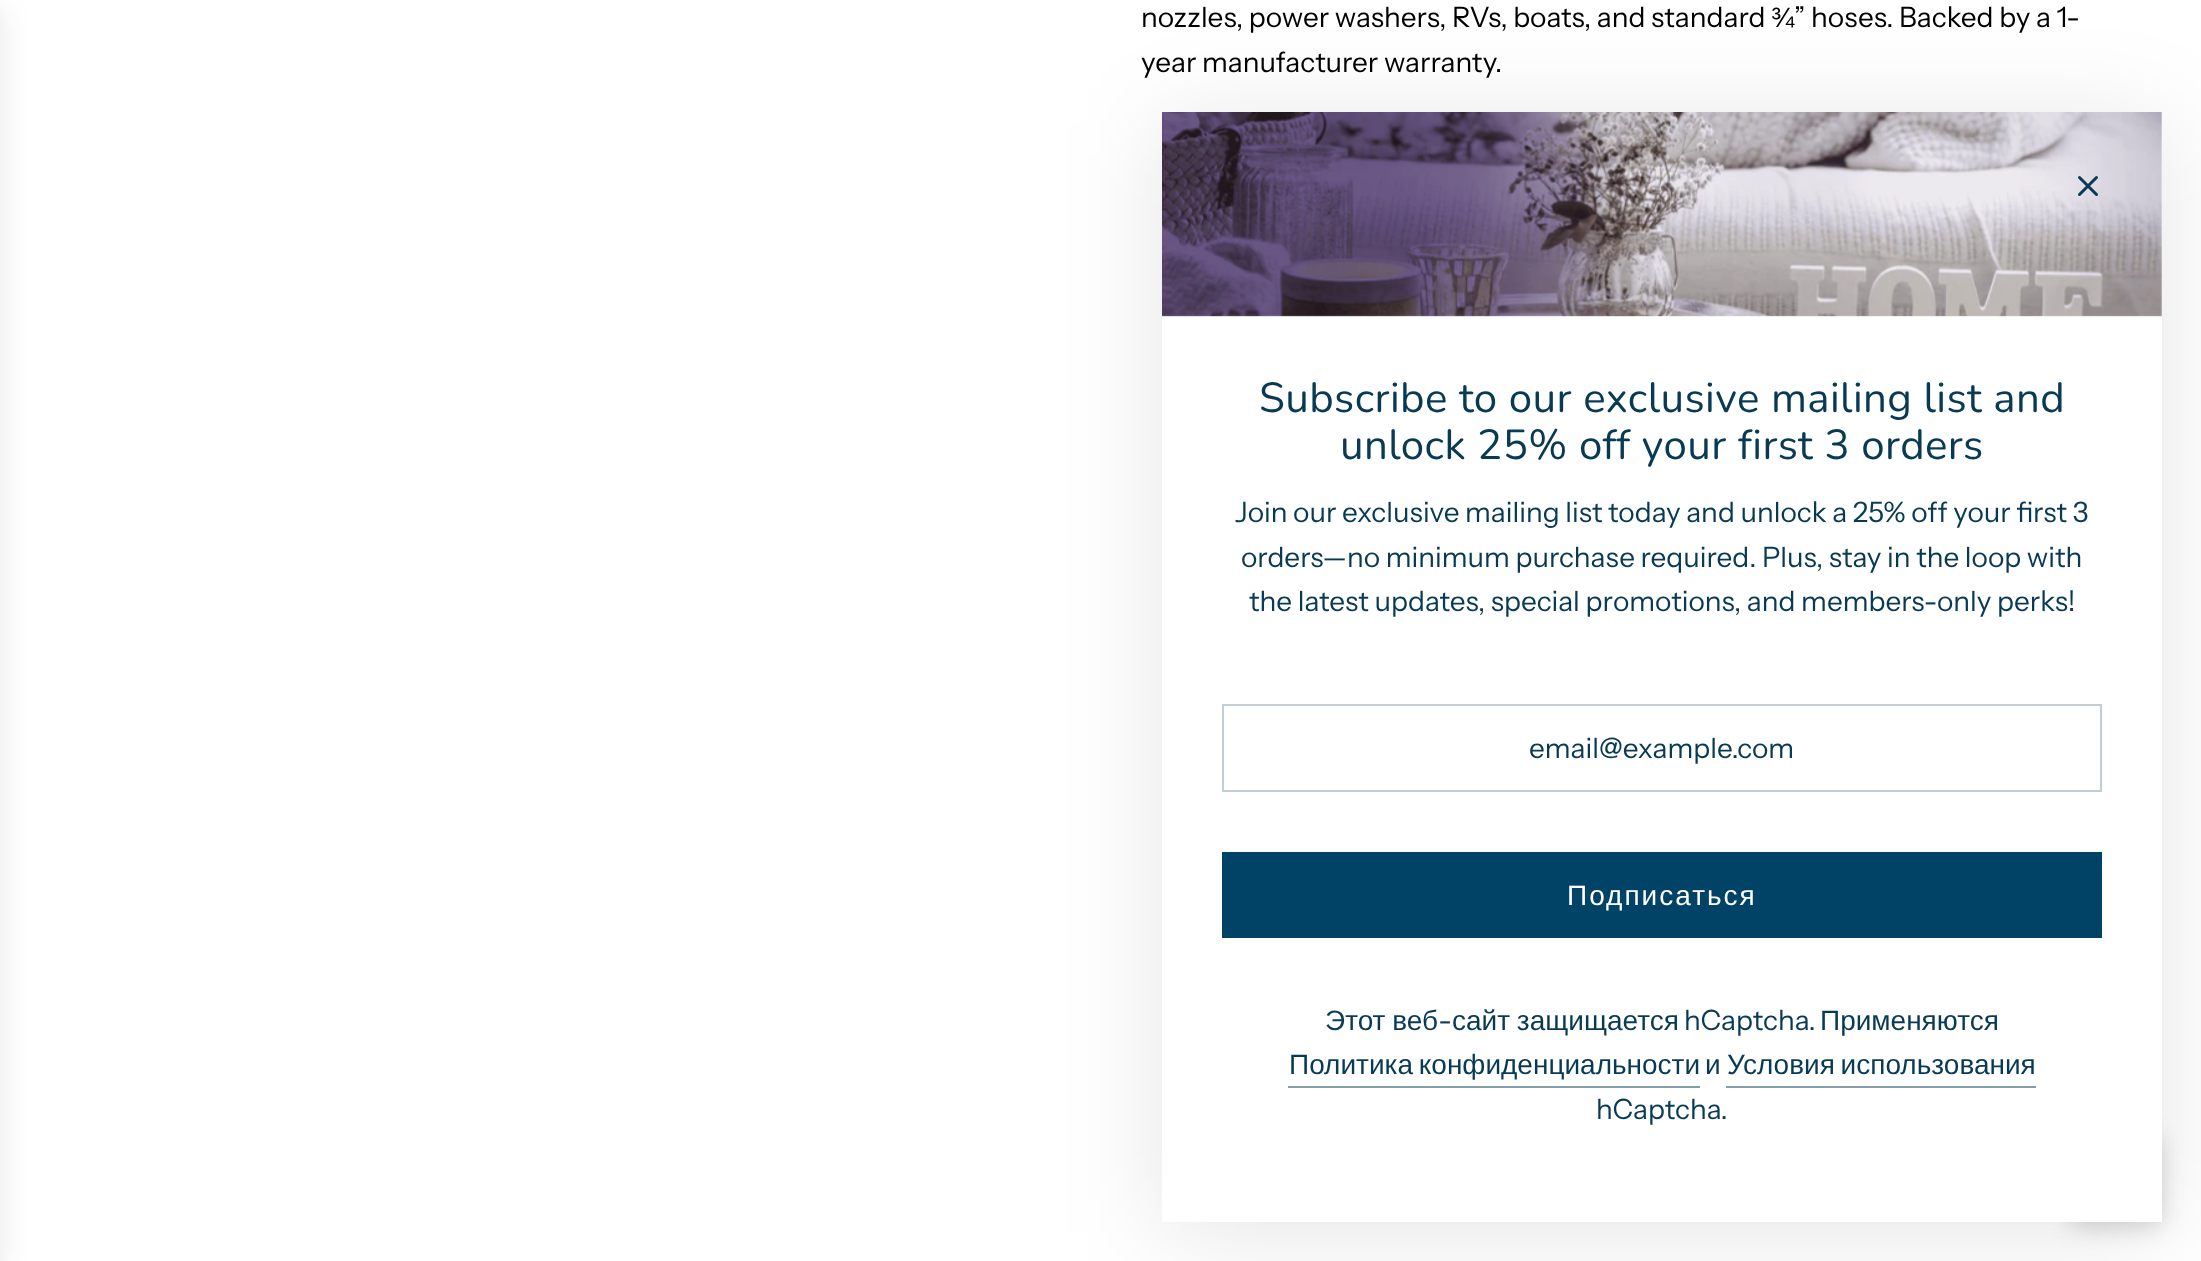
<!DOCTYPE html>
<meta charset="utf-8">
<style>body { margin: 0 } canvas { display: block }</style>
<canvas id="canvas" width="2201" height="1261"></canvas>
<img id="img1" src="images/1.png" hidden>
<script>
window.onload = function () {
    const canvas = document.getElementById('canvas');
    const context = canvas.getContext('2d');
    context.miterLimit = 4;
    context.fontKerning = 'normal';

    context.fillStyle = 'rgb(255, 255, 255)';
    context.fillRect(0, 0, 2201, 1261);
    context.fillStyle = 'rgba(0, 0, 0, 0.1)';
    context.filter = 'blur(15px)';
    context.beginPath();
    context.rect(-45, 10, 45, 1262);
    context.fill();
    context.filter = 'none';
    context.filter = 'blur(50px)';
    context.beginPath();
    context.rect(1162, 122, 1000, 1110);
    context.fill();
    context.filter = 'none';
    context.fillStyle = 'rgba(0, 0, 0, 0.18)';
    context.filter = 'blur(12px)';
    context.beginPath();
    context.rect(2072, 1138, 88, 88);
    context.fill();
    context.filter = 'none';
    context.fillStyle = 'rgb(255, 255, 255)';
    context.fillRect(1162, 112, 1000, 1110);
    context.drawImage(document.getElementById('img1'), 1162, 112, 1000, 205);
    context.beginPath();
    context.moveTo(2079.5, 194.5);
    context.lineTo(2088, 186);
    context.lineTo(2096.5, 194.5);
    context.moveTo(2096.5, 177.5);
    context.lineTo(2088, 186);
    context.lineTo(2079.5, 177.5);
    context.strokeStyle = 'rgb(8, 58, 84)';
    context.lineWidth = 3;
    context.lineCap = 'round';
    context.lineJoin = 'round';
    context.stroke();
    context.strokeStyle = 'rgb(193, 206, 212)';
    context.lineWidth = 2;
    context.lineJoin = 'miter';
    context.strokeRect(1223, 705, 878, 86);
    context.fillStyle = 'rgb(0, 67, 102)';
    context.fillRect(1222, 852, 880, 86);
    context.fillStyle = 'rgb(132, 157, 170)';
    context.fillRect(1288, 1086, 412, 2);
    context.fillRect(1726, 1086, 310, 2);
    context.font = '28px Instrument Sans';
    context.fillStyle = 'rgb(0, 0, 0)';
    context.fillText('nozzles, power washers, RVs, boats, and standard', 1141, 27);
    context.font = '28px Liberation Sans';
    context.fillText('¾', 1771, 27);
    context.font = '28px Instrument Sans';
    context.fillText('” hoses. Backed by a 1-', 1794, 27);
    context.fillText('year manufacturer warranty.', 1141, 72);
    context.letterSpacing = '0.4px';
    context.font = '42px Nunito';
    context.fillStyle = 'rgb(8, 58, 84)';
    context.fillText('Subscribe to our exclusive mailing list and', 1259, 412);
    context.fillText('unlock 25% off your first 3 orders', 1340, 459);
    context.letterSpacing = '0px';
    context.font = '28px Instrument Sans';
    context.fillText('Join our exclusive mailing list today and unlock a 25% off your first 3', 1235, 522);
    context.fillText('orders—no minimum purchase required. Plus, stay in the loop with', 1241, 567);
    context.fillText('the latest updates, special promotions, and members-only perks!', 1249, 611);
    context.fillText('email@example.com', 1529, 758);
    context.letterSpacing = '2px';
    context.font = '28px Liberation Sans';
    context.fillStyle = 'rgb(255, 255, 255)';
    context.fillText('Подписаться', 1567, 905);
    context.letterSpacing = '0px';
    context.wordSpacing = '-1px';
    context.fillStyle = 'rgb(8, 58, 84)';
    context.fillText('Этот веб', 1325, 1030);
    context.wordSpacing = '0px';
    context.font = '28px Instrument Sans';
    context.fillText('-', 1438, 1030);
    context.wordSpacing = '-1px';
    context.font = '28px Liberation Sans';
    context.fillText('сайт защищается', 1452, 1030);
    context.wordSpacing = '0px';
    context.font = '28px Instrument Sans';
    context.fillText('hCaptcha.', 1684, 1030);
    context.font = '28px Liberation Sans';
    context.fillText('Применяются', 1820, 1030);
    context.wordSpacing = '-2px';
    context.fillText('Политика конфиденциальности', 1289, 1074);
    context.wordSpacing = '0px';
    context.fillText('и', 1705, 1074);
    context.wordSpacing = '-2px';
    context.fillText('Условия использования', 1727, 1074);
    context.wordSpacing = '0px';
    context.font = '28px Instrument Sans';
    context.fillText('hCaptcha.', 1596, 1119);
};
</script>
